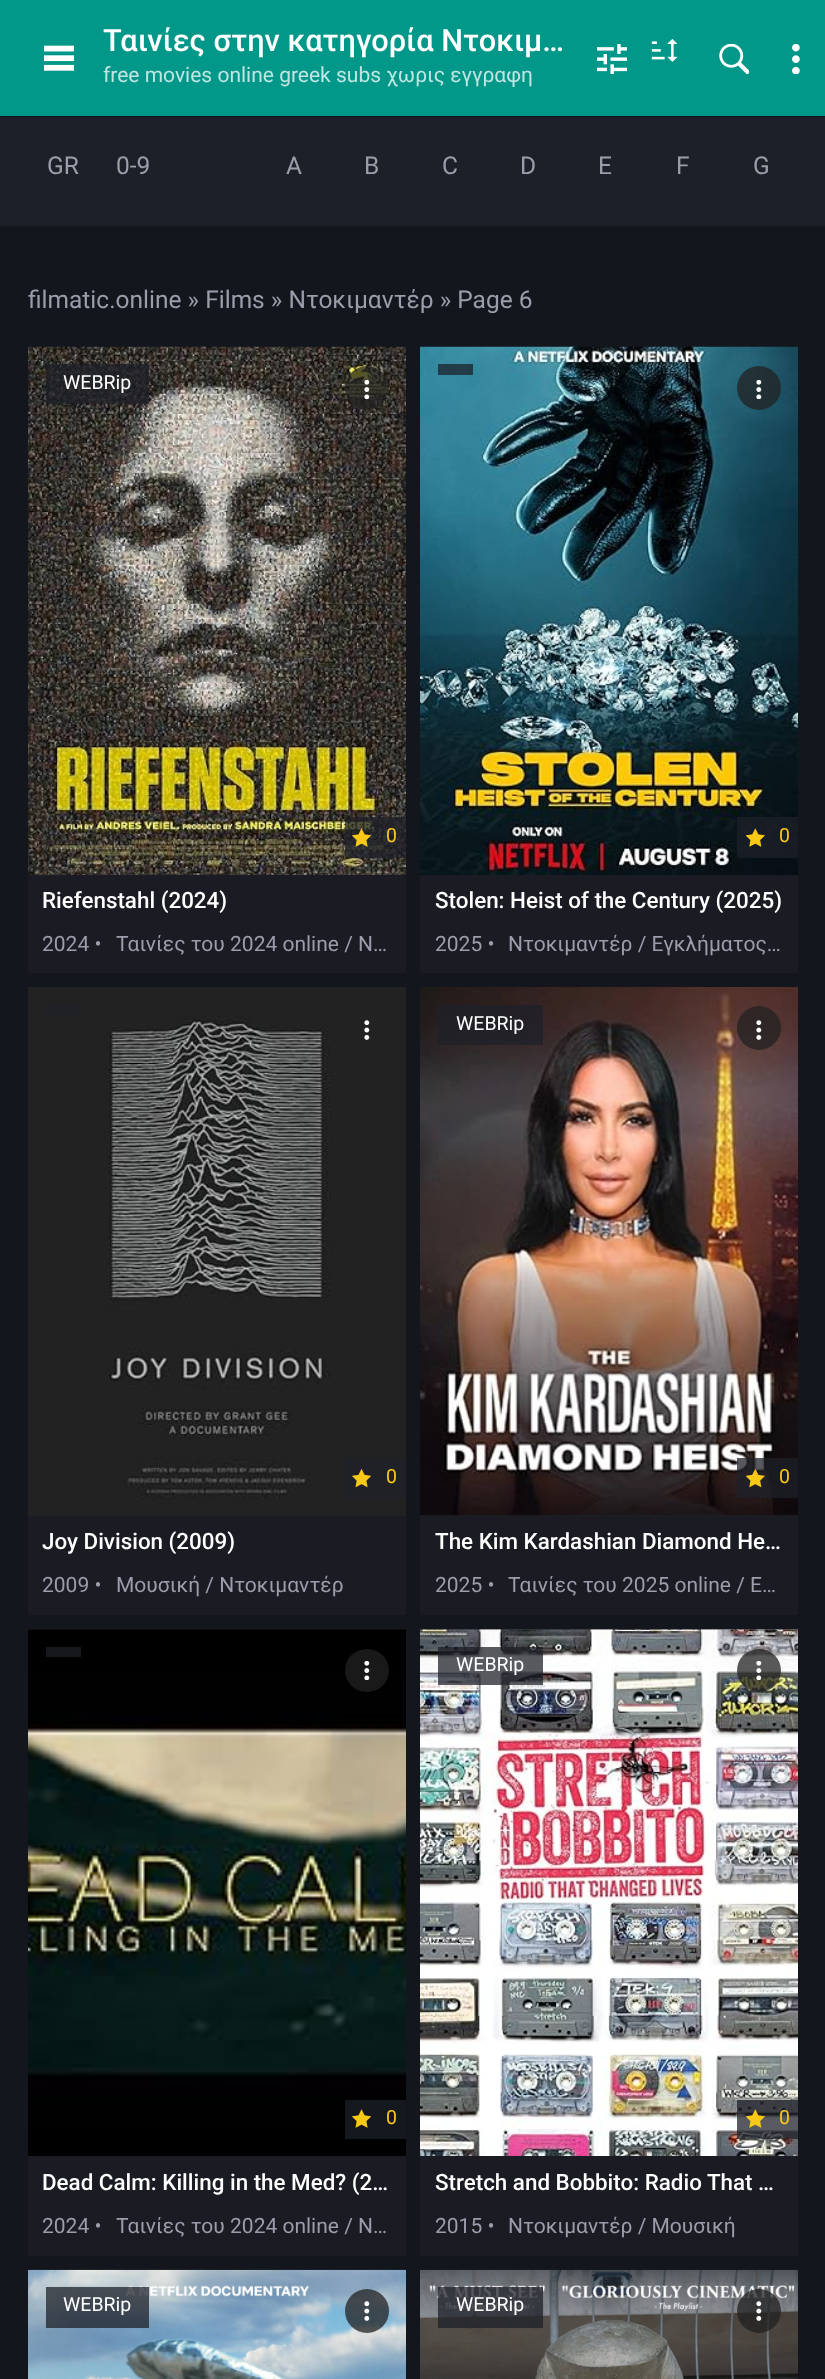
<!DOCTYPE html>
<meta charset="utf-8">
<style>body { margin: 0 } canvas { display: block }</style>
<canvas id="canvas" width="825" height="2379"></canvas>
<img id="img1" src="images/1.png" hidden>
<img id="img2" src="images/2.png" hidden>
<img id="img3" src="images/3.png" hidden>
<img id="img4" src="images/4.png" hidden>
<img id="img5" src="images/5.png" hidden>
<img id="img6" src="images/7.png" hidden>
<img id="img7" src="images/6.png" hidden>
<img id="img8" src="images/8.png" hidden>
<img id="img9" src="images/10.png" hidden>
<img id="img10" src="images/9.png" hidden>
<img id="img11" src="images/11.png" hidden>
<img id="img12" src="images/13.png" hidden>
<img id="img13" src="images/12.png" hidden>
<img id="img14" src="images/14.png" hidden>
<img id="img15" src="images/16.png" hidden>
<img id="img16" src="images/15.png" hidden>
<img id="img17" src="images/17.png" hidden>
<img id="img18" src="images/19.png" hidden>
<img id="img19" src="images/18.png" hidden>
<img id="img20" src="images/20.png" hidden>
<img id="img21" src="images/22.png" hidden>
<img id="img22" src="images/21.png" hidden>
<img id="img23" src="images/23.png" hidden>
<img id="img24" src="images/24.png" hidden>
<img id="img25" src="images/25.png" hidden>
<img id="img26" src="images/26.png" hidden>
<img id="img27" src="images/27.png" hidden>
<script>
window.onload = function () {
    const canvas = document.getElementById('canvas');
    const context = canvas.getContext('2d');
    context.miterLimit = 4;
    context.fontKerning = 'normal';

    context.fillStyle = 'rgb(19, 22, 29)';
    context.fillRect(0, 0, 825, 2379);
    context.fillStyle = 'rgb(1, 151, 137)';
    context.fillRect(0, 0, 825, 116);
    context.drawImage(document.getElementById('img1'), 44, 45, 30, 26);
    context.drawImage(document.getElementById('img2'), 597, 44, 30, 30);
    context.drawImage(document.getElementById('img3'), 651, 39, 27, 23);
    context.drawImage(document.getElementById('img4'), 719, 44, 30, 30);
    context.drawImage(document.getElementById('img5'), 792, 44, 8, 30);
    context.fillStyle = 'rgb(30, 32, 41)';
    context.fillRect(0, 117, 825, 109);
    context.fillStyle = 'rgb(26, 27, 35)';
    context.fillRect(28, 875, 378, 98);
    context.drawImage(document.getElementById('img6'), 28, 346, 378, 529);
    context.fillStyle = 'rgba(33, 33, 33, 0.75)';
    context.beginPath();
    context.arc(367, 388, 22, 0, 2 * Math.PI);
    context.fill();
    context.drawImage(document.getElementById('img7'), 364, 380, 6, 19);
    context.fillStyle = 'rgba(30, 32, 41, 0.74)';
    context.fillRect(46, 364, 103, 40);
    context.fillRect(345, 817, 61, 41);
    context.drawImage(document.getElementById('img8'), 352, 828, 19, 19);
    context.fillStyle = 'rgb(26, 27, 35)';
    context.fillRect(420, 875, 378, 98);
    context.drawImage(document.getElementById('img9'), 420, 346, 378, 529);
    context.fillStyle = 'rgba(33, 33, 33, 0.75)';
    context.beginPath();
    context.arc(759, 388, 22, 0, 2 * Math.PI);
    context.fill();
    context.drawImage(document.getElementById('img10'), 756, 380, 6, 19);
    context.fillStyle = 'rgba(30, 32, 41, 0.74)';
    context.fillRect(438, 364, 35, 11);
    context.fillRect(737, 817, 61, 41);
    context.drawImage(document.getElementById('img11'), 746, 828, 19, 19);
    context.fillStyle = 'rgb(26, 27, 35)';
    context.fillRect(28, 1516, 378, 99);
    context.drawImage(document.getElementById('img12'), 28, 987, 378, 528);
    context.drawImage(document.getElementById('img13'), 364, 1020, 6, 20);
    context.fillStyle = 'rgb(30, 32, 41)';
    context.fillRect(28, 1515, 378, 1);
    context.fillStyle = 'rgb(31, 33, 39)';
    context.fillRect(46, 1005, 35, 10);
    context.fillRect(345, 1458, 61, 40);
    context.drawImage(document.getElementById('img14'), 352, 1468, 19, 20);
    context.fillStyle = 'rgb(26, 27, 35)';
    context.fillRect(420, 1516, 378, 99);
    context.fillStyle = 'rgb(30, 32, 41)';
    context.fillRect(420, 1515, 378, 1);
    context.drawImage(document.getElementById('img15'), 420, 987, 378, 529);
    context.fillStyle = 'rgba(33, 33, 33, 0.75)';
    context.beginPath();
    context.arc(759, 1028, 22, 0, 2 * Math.PI);
    context.fill();
    context.drawImage(document.getElementById('img16'), 756, 1020, 6, 20);
    context.fillStyle = 'rgba(30, 32, 41, 0.74)';
    context.fillRect(438, 1005, 105, 40);
    context.fillRect(737, 1458, 61, 40);
    context.drawImage(document.getElementById('img17'), 746, 1468, 19, 20);
    context.fillStyle = 'rgb(26, 27, 35)';
    context.fillRect(28, 2156, 378, 100);
    context.fillStyle = 'rgb(30, 32, 41)';
    context.fillRect(28, 1629, 378, 1);
    context.drawImage(document.getElementById('img18'), 28, 1629, 378, 527);
    context.fillStyle = 'rgb(25, 25, 25)';
    context.beginPath();
    context.roundRect(345, 1649, 44, 43, 21.5);
    context.fill();
    context.drawImage(document.getElementById('img19'), 364, 1661, 6, 19);
    context.fillStyle = 'rgb(22, 24, 30)';
    context.fillRect(46, 1647, 35, 10);
    context.fillStyle = 'rgb(22, 24, 31)';
    context.fillRect(345, 2100, 61, 39);
    context.drawImage(document.getElementById('img20'), 352, 2109, 19, 19);
    context.fillStyle = 'rgb(26, 27, 35)';
    context.fillRect(420, 2156, 378, 100);
    context.fillStyle = 'rgb(30, 32, 41)';
    context.fillRect(420, 1629, 378, 1);
    context.drawImage(document.getElementById('img21'), 420, 1629, 378, 527);
    context.fillStyle = 'rgba(33, 33, 33, 0.75)';
    context.beginPath();
    context.roundRect(737, 1649, 44, 43, 21.5);
    context.fill();
    context.drawImage(document.getElementById('img22'), 756, 1661, 6, 19);
    context.fillStyle = 'rgba(30, 32, 41, 0.74)';
    context.fillRect(438, 1647, 105, 38);
    context.fillRect(737, 2100, 61, 39);
    context.drawImage(document.getElementById('img23'), 746, 2109, 19, 19);
    context.drawImage(document.getElementById('img24'), 28, 2269, 378, 110);
    context.fillRect(46, 2287, 103, 41);
    context.fillStyle = 'rgba(33, 33, 33, 0.75)';
    context.beginPath();
    context.arc(367, 2311, 22, 0, 2 * Math.PI);
    context.fill();
    context.drawImage(document.getElementById('img25'), 364, 2301, 6, 20);
    context.drawImage(document.getElementById('img26'), 420, 2269, 378, 110);
    context.fillStyle = 'rgba(30, 32, 41, 0.74)';
    context.fillRect(438, 2287, 105, 41);
    context.fillStyle = 'rgba(33, 33, 33, 0.75)';
    context.beginPath();
    context.arc(759, 2311, 22, 0, 2 * Math.PI);
    context.fill();
    context.drawImage(document.getElementById('img27'), 756, 2301, 6, 20);
    context.font = '500 30.75px Roboto';
    context.fillStyle = 'rgb(255, 255, 255)';
    context.fillText('Ταινίες στην κατηγορία Ντοκιμ…', 103, 51);
    context.font = '21px Roboto';
    context.fillStyle = 'rgb(192, 229, 226)';
    context.fillText('free movies online greek subs χωρις εγγραφη', 103, 82);
    context.font = '24.5px Roboto';
    context.fillStyle = 'rgb(155, 157, 171)';
    context.fillText('GR', 47, 174);
    context.fillText('0-9', 116, 174);
    context.fillText('A', 286, 174);
    context.fillText('B', 364, 174);
    context.fillText('C', 442, 174);
    context.fillText('D', 520, 174);
    context.fillText('E', 598, 174);
    context.fillText('F', 676, 174);
    context.fillText('G', 753, 174);
    context.fillText('filmatic.online » Films » Ντοκιμαντέρ » Page 6', 28, 308);
    context.font = '19.5px Roboto';
    context.fillStyle = 'rgb(255, 255, 255)';
    context.fillText('WEBRip', 63, 389);
    context.fillStyle = 'rgb(250, 201, 23)';
    context.fillText('0', 386, 842);
    context.font = '500 22.4px Roboto';
    context.fillStyle = 'rgb(255, 255, 255)';
    context.fillText('Riefenstahl (2024)', 42, 908);
    context.font = '21px Roboto';
    context.fillStyle = 'rgb(155, 157, 171)';
    context.fillText('2024 •', 42, 951);
    context.fillText('Ταινίες του 2024 online / Ν…', 116, 951);
    context.font = '19.5px Roboto';
    context.fillStyle = 'rgb(250, 201, 23)';
    context.fillText('0', 779, 842);
    context.font = '500 22.4px Roboto';
    context.fillStyle = 'rgb(255, 255, 255)';
    context.fillText('Stolen: Heist of the Century (2025)', 435, 908);
    context.font = '21px Roboto';
    context.fillStyle = 'rgb(155, 157, 171)';
    context.fillText('2025 •', 435, 951);
    context.fillText('Ντοκιμαντέρ / Εγκλήματος…', 508, 951);
    context.font = '19.5px Roboto';
    context.fillStyle = 'rgb(250, 201, 23)';
    context.fillText('0', 386, 1483);
    context.font = '500 22.4px Roboto';
    context.fillStyle = 'rgb(255, 255, 255)';
    context.fillText('Joy Division (2009)', 42, 1549);
    context.font = '21px Roboto';
    context.fillStyle = 'rgb(155, 157, 171)';
    context.fillText('2009 •', 42, 1592);
    context.fillText('Μουσική / Ντοκιμαντέρ', 116, 1592);
    context.font = '19.5px Roboto';
    context.fillStyle = 'rgb(255, 255, 255)';
    context.fillText('WEBRip', 456, 1030);
    context.fillStyle = 'rgb(250, 201, 23)';
    context.fillText('0', 779, 1483);
    context.font = '500 22.4px Roboto';
    context.fillStyle = 'rgb(255, 255, 255)';
    context.fillText('The Kim Kardashian Diamond He…', 435, 1549);
    context.font = '21px Roboto';
    context.fillStyle = 'rgb(155, 157, 171)';
    context.fillText('2025 •', 435, 1592);
    context.fillText('Ταινίες του 2025 online / Ε…', 508, 1592);
    context.font = '19.5px Roboto';
    context.fillStyle = 'rgb(250, 201, 23)';
    context.fillText('0', 386, 2124);
    context.font = '500 22.4px Roboto';
    context.fillStyle = 'rgb(255, 255, 255)';
    context.fillText('Dead Calm: Killing in the Med? (2…', 42, 2190);
    context.font = '21px Roboto';
    context.fillStyle = 'rgb(155, 157, 171)';
    context.fillText('2024 •', 42, 2233);
    context.fillText('Ταινίες του 2024 online / Ν…', 116, 2233);
    context.font = '19.5px Roboto';
    context.fillStyle = 'rgb(255, 255, 255)';
    context.fillText('WEBRip', 456, 1671);
    context.fillStyle = 'rgb(250, 201, 23)';
    context.fillText('0', 779, 2124);
    context.font = '500 22.4px Roboto';
    context.fillStyle = 'rgb(255, 255, 255)';
    context.fillText('Stretch and Bobbito: Radio That …', 435, 2190);
    context.font = '21px Roboto';
    context.fillStyle = 'rgb(155, 157, 171)';
    context.fillText('2015 •', 435, 2233);
    context.fillText('Ντοκιμαντέρ / Μουσική', 508, 2233);
    context.font = '19.5px Roboto';
    context.fillStyle = 'rgb(255, 255, 255)';
    context.fillText('WEBRip', 63, 2311);
    context.fillText('WEBRip', 456, 2311);
};
</script>
